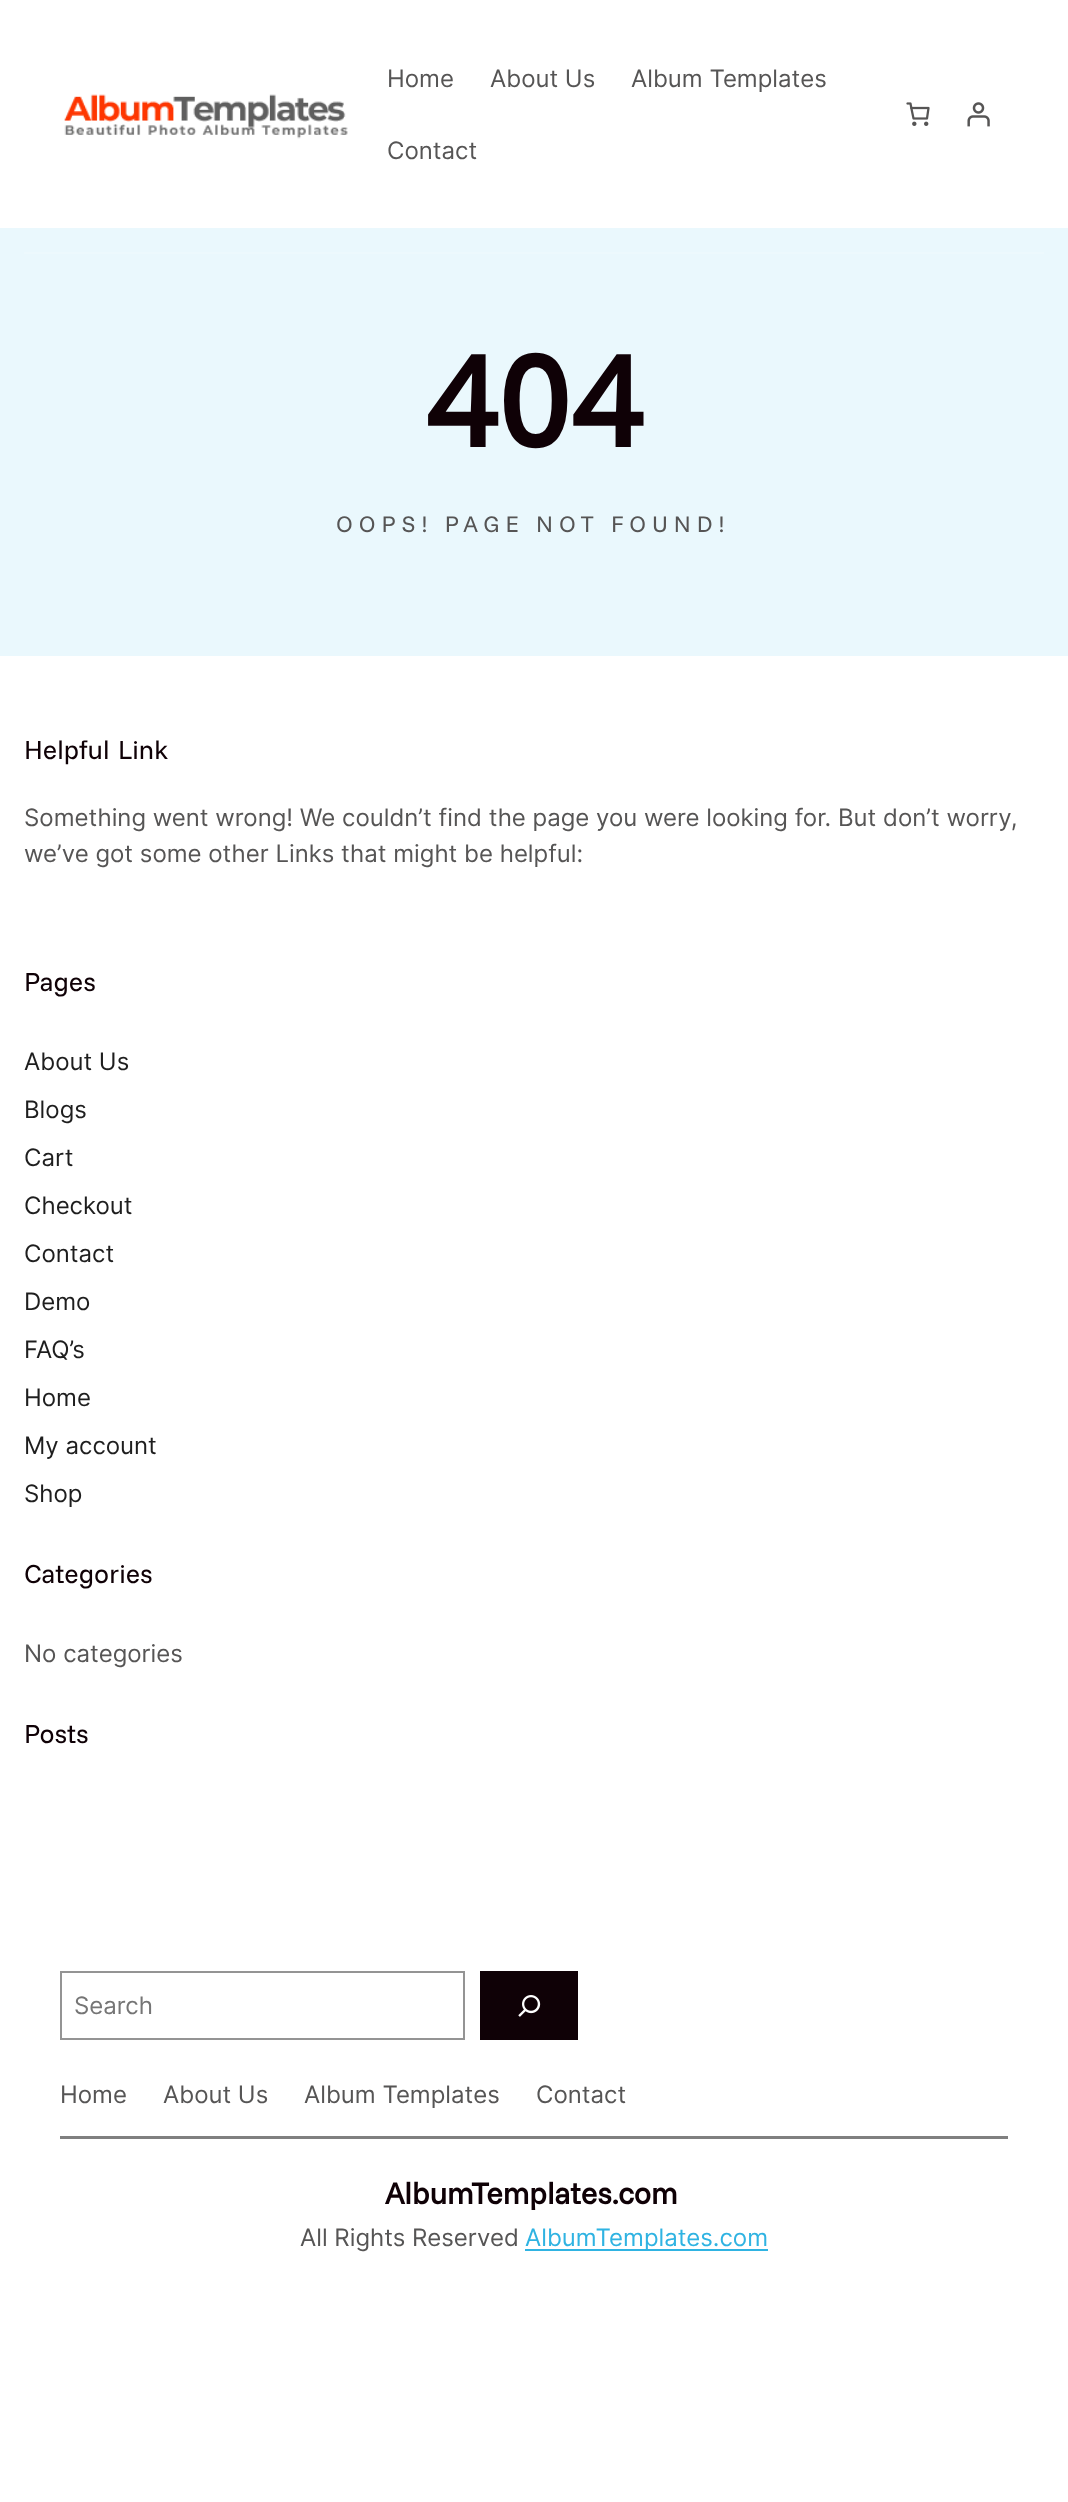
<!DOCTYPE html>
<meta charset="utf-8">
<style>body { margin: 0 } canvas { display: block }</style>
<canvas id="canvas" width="1068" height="2502"></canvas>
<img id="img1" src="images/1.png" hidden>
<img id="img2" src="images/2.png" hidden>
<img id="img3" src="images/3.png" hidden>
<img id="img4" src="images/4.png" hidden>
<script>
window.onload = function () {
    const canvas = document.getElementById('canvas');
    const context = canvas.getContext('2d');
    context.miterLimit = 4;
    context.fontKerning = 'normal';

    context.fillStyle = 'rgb(255, 255, 255)';
    context.fillRect(0, 0, 1068, 2502);
    context.drawImage(document.getElementById('img1'), 64, 94, 284, 45);
    context.drawImage(document.getElementById('img2'), 906, 102, 24, 24);
    context.drawImage(document.getElementById('img3'), 967, 102, 23, 25);
    context.fillStyle = 'rgb(234, 248, 253)';
    context.fillRect(0, 228, 1068, 428);
    context.fillStyle = 'rgb(237, 249, 253)';
    context.fillRect(24, 252, 1020, 2);
    context.strokeStyle = 'rgb(148, 148, 148)';
    context.lineWidth = 2;
    context.strokeRect(61, 1972, 403, 67);
    context.fillStyle = 'rgb(15, 1, 6)';
    context.fillRect(480, 1971, 98, 69);
    context.drawImage(document.getElementById('img4'), 518, 1995, 23, 22);
    context.fillStyle = 'rgb(128, 128, 128)';
    context.fillRect(60, 2136, 948, 3);
    context.fillStyle = 'rgb(47, 179, 226)';
    context.fillRect(525, 2249, 243, 2);
    context.font = '24px Inter';
    context.fillStyle = 'rgb(86, 85, 85)';
    context.fillText('Home', 387, 87);
    context.fillText('About Us', 490, 87);
    context.fillText('Album Templates', 631, 87);
    context.fillText('Contact', 387, 159);
    context.font = 'bold 132px Funnel Sans';
    context.fillStyle = 'rgb(15, 1, 6)';
    context.fillText('404', 425, 447);
    context.letterSpacing = '6px';
    context.wordSpacing = '-0.5px';
    context.font = '23.1px Funnel Sans';
    context.fillStyle = 'rgb(86, 85, 85)';
    context.fillText('OOPS! PAGE NOT FOUND!', 336, 532);
    context.letterSpacing = '0px';
    context.wordSpacing = '2px';
    context.font = '26.5px Funnel Sans';
    context.fillStyle = 'rgb(15, 1, 6)';
    context.fillText('Helpful Link', 24, 759);
    context.wordSpacing = '0px';
    context.font = '24px Inter';
    context.fillStyle = 'rgb(86, 85, 85)';
    context.fillText('Something went wrong! We couldn’t find the page you were looking for. But don’t worry,', 24, 826);
    context.fillText('we’ve got some other Links that might be helpful:', 24, 862);
    context.font = '26.5px Funnel Sans';
    context.fillStyle = 'rgb(15, 1, 6)';
    context.fillText('Pages', 24, 991);
    context.font = '24px Inter';
    context.fillStyle = 'rgb(30, 30, 30)';
    context.fillText('About Us', 24, 1070);
    context.fillText('Blogs', 24, 1118);
    context.fillText('Cart', 24, 1166);
    context.fillText('Checkout', 24, 1214);
    context.fillText('Contact', 24, 1262);
    context.fillText('Demo', 24, 1310);
    context.fillText('FAQ’s', 24, 1358);
    context.fillText('Home', 24, 1406);
    context.fillText('My account', 24, 1454);
    context.fillText('Shop', 24, 1502);
    context.font = '26.5px Funnel Sans';
    context.fillStyle = 'rgb(15, 1, 6)';
    context.fillText('Categories', 24, 1583);
    context.font = '24px Inter';
    context.fillStyle = 'rgb(86, 85, 85)';
    context.fillText('No categories', 24, 1662);
    context.font = '26.5px Funnel Sans';
    context.fillStyle = 'rgb(15, 1, 6)';
    context.fillText('Posts', 24, 1743);
    context.font = '24px Inter';
    context.fillStyle = 'rgb(117, 117, 117)';
    context.fillText('Search', 74, 2014);
    context.fillStyle = 'rgb(86, 85, 85)';
    context.fillText('Home', 60, 2103);
    context.fillText('About Us', 163, 2103);
    context.fillText('Album Templates', 304, 2103);
    context.fillText('Contact', 536, 2103);
    context.font = 'bold 30.5px Funnel Sans';
    context.fillStyle = 'rgb(15, 1, 6)';
    context.fillText('AlbumTemplates.com', 385, 2204);
    context.font = '24px Inter';
    context.fillStyle = 'rgb(86, 85, 85)';
    context.fillText('All Rights Reserved', 300, 2246);
    context.fillStyle = 'rgb(47, 179, 226)';
    context.fillText('AlbumTemplates.com', 525, 2246);
};
</script>
